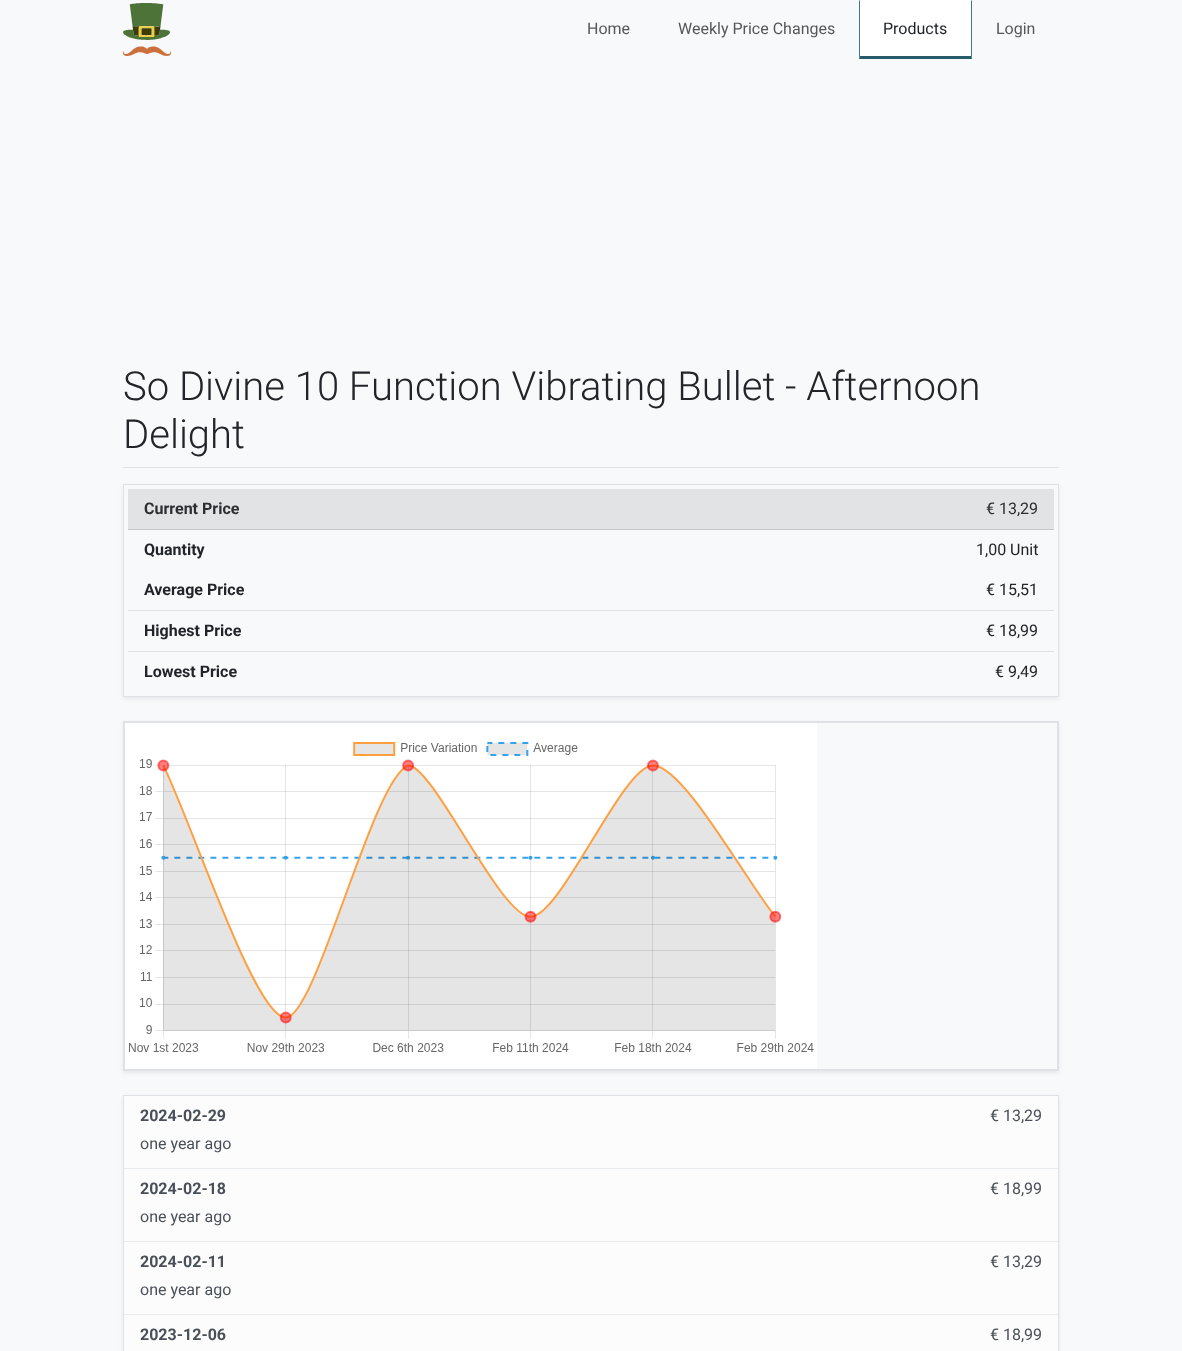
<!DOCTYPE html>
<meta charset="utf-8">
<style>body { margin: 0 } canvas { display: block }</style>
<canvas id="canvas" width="1182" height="1351"></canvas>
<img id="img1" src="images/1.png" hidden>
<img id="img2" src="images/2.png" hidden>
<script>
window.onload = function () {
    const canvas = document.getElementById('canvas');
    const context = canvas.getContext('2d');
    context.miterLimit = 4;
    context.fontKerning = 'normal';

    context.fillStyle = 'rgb(248, 249, 250)';
    context.fillRect(0, 0, 1182, 1351);
    context.drawImage(document.getElementById('img1'), 123, 3, 48, 53);
    context.fillStyle = 'rgb(255, 255, 255)';
    context.fillRect(859, 0, 113, 59);
    context.fillStyle = 'rgb(68, 118, 132)';
    context.beginPath();
    context.moveTo(972, 0);
    context.lineTo(972, 59);
    context.lineTo(971, 56);
    context.lineTo(971, 1);
    context.closePath();
    context.fill();
    context.fillStyle = 'rgb(38, 91, 106)';
    context.beginPath();
    context.moveTo(972, 59);
    context.lineTo(859, 59);
    context.lineTo(860, 56);
    context.lineTo(971, 56);
    context.closePath();
    context.fill();
    context.fillStyle = 'rgb(68, 118, 132)';
    context.beginPath();
    context.moveTo(859, 59);
    context.lineTo(859, 0);
    context.lineTo(860, 1);
    context.lineTo(860, 56);
    context.closePath();
    context.fill();
    context.fillStyle = 'rgb(222, 226, 230)';
    context.fillRect(123, 467, 936, 1);
    context.save();
    context.beginPath();
    context.moveTo(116, 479);
    context.lineTo(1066, 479);
    context.lineTo(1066, 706);
    context.lineTo(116, 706);
    context.closePath();
    context.moveTo(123, 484);
    context.lineTo(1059, 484);
    context.lineTo(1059, 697);
    context.lineTo(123, 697);
    context.closePath();
    context.clip('evenodd');
    context.fillStyle = 'rgba(0, 0, 0, 0.07)';
    context.filter = 'blur(2px)';
    context.beginPath();
    context.rect(123, 486, 936, 213);
    context.fill();
    context.filter = 'none';
    context.restore();
    context.strokeStyle = 'rgb(222, 226, 230)';
    context.strokeRect(123.5, 484.5, 935, 212);
    context.fillStyle = 'rgb(226, 227, 229)';
    context.fillRect(128, 489, 926, 40);
    context.fillStyle = 'rgb(196, 200, 203)';
    context.fillRect(128, 529, 926, 1);
    context.fillStyle = 'rgb(222, 226, 230)';
    context.fillRect(128, 610, 926, 1);
    context.fillRect(128, 651, 926, 1);
    context.save();
    context.beginPath();
    context.moveTo(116, 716);
    context.lineTo(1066, 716);
    context.lineTo(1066, 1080);
    context.lineTo(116, 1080);
    context.closePath();
    context.moveTo(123, 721);
    context.lineTo(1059, 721);
    context.lineTo(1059, 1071);
    context.lineTo(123, 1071);
    context.closePath();
    context.clip('evenodd');
    context.fillStyle = 'rgba(0, 0, 0, 0.07)';
    context.filter = 'blur(2px)';
    context.beginPath();
    context.rect(123, 723, 936, 350);
    context.fill();
    context.filter = 'none';
    context.restore();
    context.strokeRect(123.5, 721.5, 935, 349);
    context.strokeRect(124.5, 722.5, 933, 347);
    context.drawImage(document.getElementById('img2'), 125, 723, 692, 346);
    context.fillStyle = 'rgba(0, 0, 0, 0.07)';
    context.filter = 'blur(2px)';
    context.beginPath();
    context.rect(123, 1097, 936, 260);
    context.fill();
    context.filter = 'none';
    context.strokeRect(123.5, 1095.5, 935, 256);
    context.fillStyle = 'rgb(252, 252, 253)';
    context.fillRect(124, 1096, 934, 72);
    context.fillStyle = 'rgb(233, 236, 239)';
    context.fillRect(124, 1168, 934, 1);
    context.fillStyle = 'rgb(252, 252, 253)';
    context.fillRect(124, 1169, 934, 72);
    context.fillStyle = 'rgb(233, 236, 239)';
    context.fillRect(124, 1241, 934, 1);
    context.fillStyle = 'rgb(252, 252, 253)';
    context.fillRect(124, 1242, 934, 72);
    context.fillStyle = 'rgb(233, 236, 239)';
    context.fillRect(124, 1314, 934, 1);
    context.fillStyle = 'rgb(252, 252, 253)';
    context.fillRect(124, 1315, 934, 36);
    context.font = '16px Roboto';
    context.fillStyle = 'rgb(87, 87, 88)';
    context.fillText('Home', 587, 34);
    context.fillText('Weekly Price Changes', 678, 34);
    context.fillStyle = 'rgb(33, 37, 41)';
    context.fillText('Products', 883, 34);
    context.fillStyle = 'rgb(87, 87, 88)';
    context.fillText('Login', 996, 34);
    context.font = '300 40px Roboto';
    context.fillStyle = 'rgb(33, 37, 41)';
    context.fillText('So Divine 10 Function Vibrating Bullet - Afternoon', 123, 400);
    context.fillText('Delight', 123, 448);
    context.font = 'bold 16px Roboto';
    context.fillStyle = 'rgb(43, 47, 50)';
    context.fillText('Current Price', 144, 514);
    context.font = '16px Roboto';
    context.fillText('€ 13,29', 986, 514);
    context.font = 'bold 16px Roboto';
    context.fillStyle = 'rgb(33, 37, 41)';
    context.fillText('Quantity', 144, 555);
    context.font = '16px Roboto';
    context.fillText('1,00 Unit', 976, 555);
    context.font = 'bold 16px Roboto';
    context.fillText('Average Price', 144, 595);
    context.font = '16px Roboto';
    context.fillText('€ 15,51', 986, 595);
    context.font = 'bold 16px Roboto';
    context.fillText('Highest Price', 144, 636);
    context.font = '16px Roboto';
    context.fillText('€ 18,99', 986, 636);
    context.font = 'bold 16px Roboto';
    context.fillText('Lowest Price', 144, 677);
    context.font = '16px Roboto';
    context.fillText('€ 9,49', 995, 677);
    context.font = 'bold 16px Roboto';
    context.fillStyle = 'rgb(73, 80, 87)';
    context.fillText('2024-02-29', 140, 1121);
    context.font = '16px Roboto';
    context.fillText('€ 13,29', 990, 1121);
    context.fillText('one year ago', 140, 1149);
    context.font = 'bold 16px Roboto';
    context.fillText('2024-02-18', 140, 1194);
    context.font = '16px Roboto';
    context.fillText('€ 18,99', 990, 1194);
    context.fillText('one year ago', 140, 1222);
    context.font = 'bold 16px Roboto';
    context.fillText('2024-02-11', 140, 1267);
    context.font = '16px Roboto';
    context.fillText('€ 13,29', 990, 1267);
    context.fillText('one year ago', 140, 1295);
    context.font = 'bold 16px Roboto';
    context.fillText('2023-12-06', 140, 1340);
    context.font = '16px Roboto';
    context.fillText('€ 18,99', 990, 1340);
};
</script>
